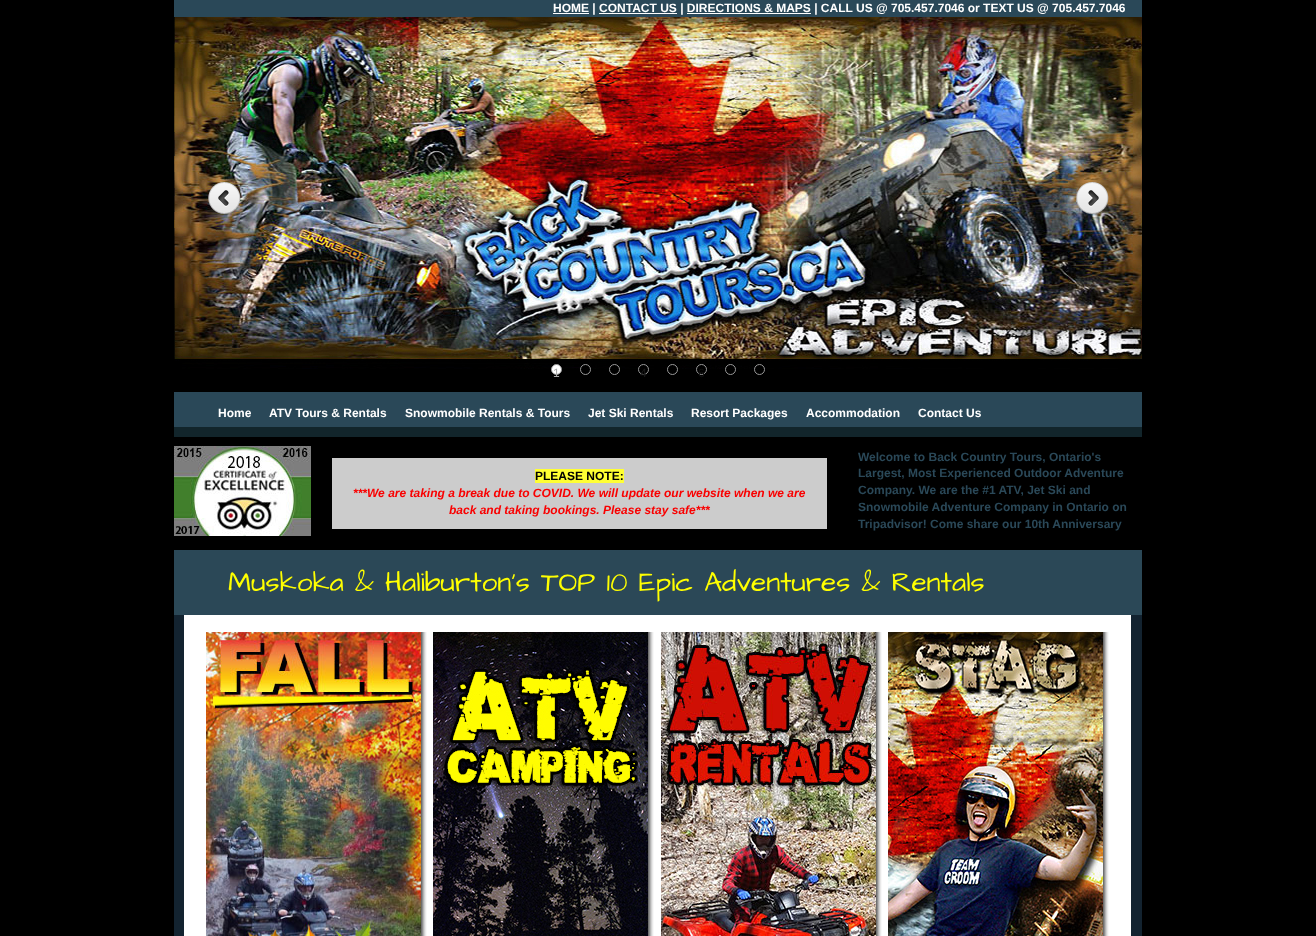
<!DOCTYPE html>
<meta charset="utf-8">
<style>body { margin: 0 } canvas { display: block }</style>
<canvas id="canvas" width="1316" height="936"></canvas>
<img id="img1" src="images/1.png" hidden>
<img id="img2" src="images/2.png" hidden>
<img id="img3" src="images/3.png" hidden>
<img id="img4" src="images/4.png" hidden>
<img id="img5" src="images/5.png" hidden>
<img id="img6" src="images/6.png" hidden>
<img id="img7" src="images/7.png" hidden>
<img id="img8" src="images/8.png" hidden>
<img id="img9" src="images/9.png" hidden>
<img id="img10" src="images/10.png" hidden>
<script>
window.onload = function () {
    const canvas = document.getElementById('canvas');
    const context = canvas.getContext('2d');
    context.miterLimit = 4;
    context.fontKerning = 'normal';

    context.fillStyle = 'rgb(0, 0, 0)';
    context.fillRect(0, 0, 1316, 936);
    context.fillStyle = 'rgb(42, 72, 88)';
    context.fillRect(174, 0, 968, 427);
    context.fillStyle = 'rgb(255, 255, 255)';
    context.fillRect(553, 13, 36, 1);
    context.fillRect(599, 13, 78, 1);
    context.fillRect(687, 13, 124, 1);
    context.fillStyle = 'rgb(0, 0, 0)';
    context.fillRect(174, 369, 968, 23);
    context.drawImage(document.getElementById('img1'), 174, 17, 968, 352);
    context.drawImage(document.getElementById('img2'), 208, 182, 33, 33);
    context.drawImage(document.getElementById('img3'), 1076, 182, 33, 34);
    context.fillStyle = 'rgb(255, 255, 255)';
    context.beginPath();
    context.arc(556.5, 369.5, 5, 0, 2 * Math.PI);
    context.fill();
    context.strokeStyle = 'rgb(153, 153, 153)';
    context.stroke();
    context.fillStyle = 'rgb(0, 0, 0)';
    context.beginPath();
    context.arc(585.5, 369.5, 5, 0, 2 * Math.PI);
    context.fill();
    context.stroke();
    context.beginPath();
    context.arc(614.5, 369.5, 5, 0, 2 * Math.PI);
    context.fill();
    context.stroke();
    context.beginPath();
    context.arc(643.5, 369.5, 5, 0, 2 * Math.PI);
    context.stroke();
    context.beginPath();
    context.arc(672.5, 369.5, 5, 0, 2 * Math.PI);
    context.fill();
    context.stroke();
    context.beginPath();
    context.arc(701.5, 369.5, 5, 0, 2 * Math.PI);
    context.fill();
    context.stroke();
    context.beginPath();
    context.arc(730.5, 369.5, 5, 0, 2 * Math.PI);
    context.fill();
    context.stroke();
    context.beginPath();
    context.arc(759.5, 369.5, 5, 0, 2 * Math.PI);
    context.fill();
    context.stroke();
    context.fillStyle = 'rgb(18, 37, 43)';
    context.fillRect(174, 427, 968, 10);
    context.drawImage(document.getElementById('img4'), 174, 615, 968, 321);
    context.drawImage(document.getElementById('img5'), 174, 446, 137, 90);
    context.fillStyle = 'rgb(204, 204, 204)';
    context.fillRect(332, 458, 495, 71);
    context.fillStyle = 'rgb(255, 255, 51)';
    context.fillRect(535, 469, 89, 14);
    context.fillStyle = 'rgb(43, 72, 87)';
    context.fillRect(174, 550, 968, 65);
    context.drawImage(document.getElementById('img6'), 206, 632, 215, 304);
    context.drawImage(document.getElementById('img7'), 421, 632, 6, 304);
    context.drawImage(document.getElementById('img8'), 433, 632, 215, 304);
    context.drawImage(document.getElementById('img7'), 648, 632, 6, 304);
    context.drawImage(document.getElementById('img9'), 661, 632, 215, 304);
    context.drawImage(document.getElementById('img7'), 876, 632, 6, 304);
    context.drawImage(document.getElementById('img10'), 888, 632, 215, 304);
    context.drawImage(document.getElementById('img7'), 1103, 632, 6, 304);
    context.font = 'bold 12px Liberation Sans';
    context.fillStyle = 'rgb(255, 255, 255)';
    context.fillText('HOME | CONTACT US | DIRECTIONS & MAPS | CALL US @ 705.457.7046 or TEXT US @ 705.457.7046', 553, 12);
    context.font = '12px Liberation Sans';
    context.fillStyle = 'rgb(168, 168, 168)';
    context.fillText('1', 553, 377);
    context.fillStyle = 'rgb(26, 26, 26)';
    context.fillText('4', 640, 377);
    context.fillStyle = 'rgb(17, 17, 17)';
    context.fillText('6', 698, 377);
    context.font = 'bold 12px Liberation Sans';
    context.fillStyle = 'rgb(255, 255, 255)';
    context.fillText('Home', 218, 417);
    context.fillText('ATV Tours & Rentals', 269, 417);
    context.fillText('Snowmobile Rentals & Tours', 405, 417);
    context.fillText('Jet Ski Rentals', 588, 417);
    context.fillText('Resort Packages', 691, 417);
    context.fillText('Accommodation', 806, 417);
    context.fillText('Contact Us', 918, 417);
    context.fillStyle = 'rgb(0, 0, 0)';
    context.fillText('PLEASE NOTE:', 535, 480);
    context.font = 'italic bold 12px Liberation Sans';
    context.fillStyle = 'rgb(249, 0, 0)';
    context.fillText('***We are taking a break due to COVID. We will update our website when we are', 353, 497);
    context.fillText('back and taking bookings. Please stay safe***', 449, 514);
    context.font = 'bold 12px Liberation Sans';
    context.fillStyle = 'rgb(42, 72, 88)';
    context.fillText('Welcome to Back Country Tours, Ontario\'s', 858, 461);
    context.fillText('Largest, Most Experienced Outdoor Adventure', 858, 477);
    context.fillText('Company. We are the #1 ATV, Jet Ski and', 858, 494);
    context.fillText('Snowmobile Adventure Company in Ontario on', 858, 511);
    context.fillText('Tripadvisor! Come share our 10th Anniversary', 858, 528);
    context.font = '28px Architects Daughter';
    context.fillStyle = 'rgb(255, 255, 0)';
    context.fillText('Muskoka & Haliburton\'s TOP 10 Epic Adventures & Rentals', 228, 591);
};
</script>
